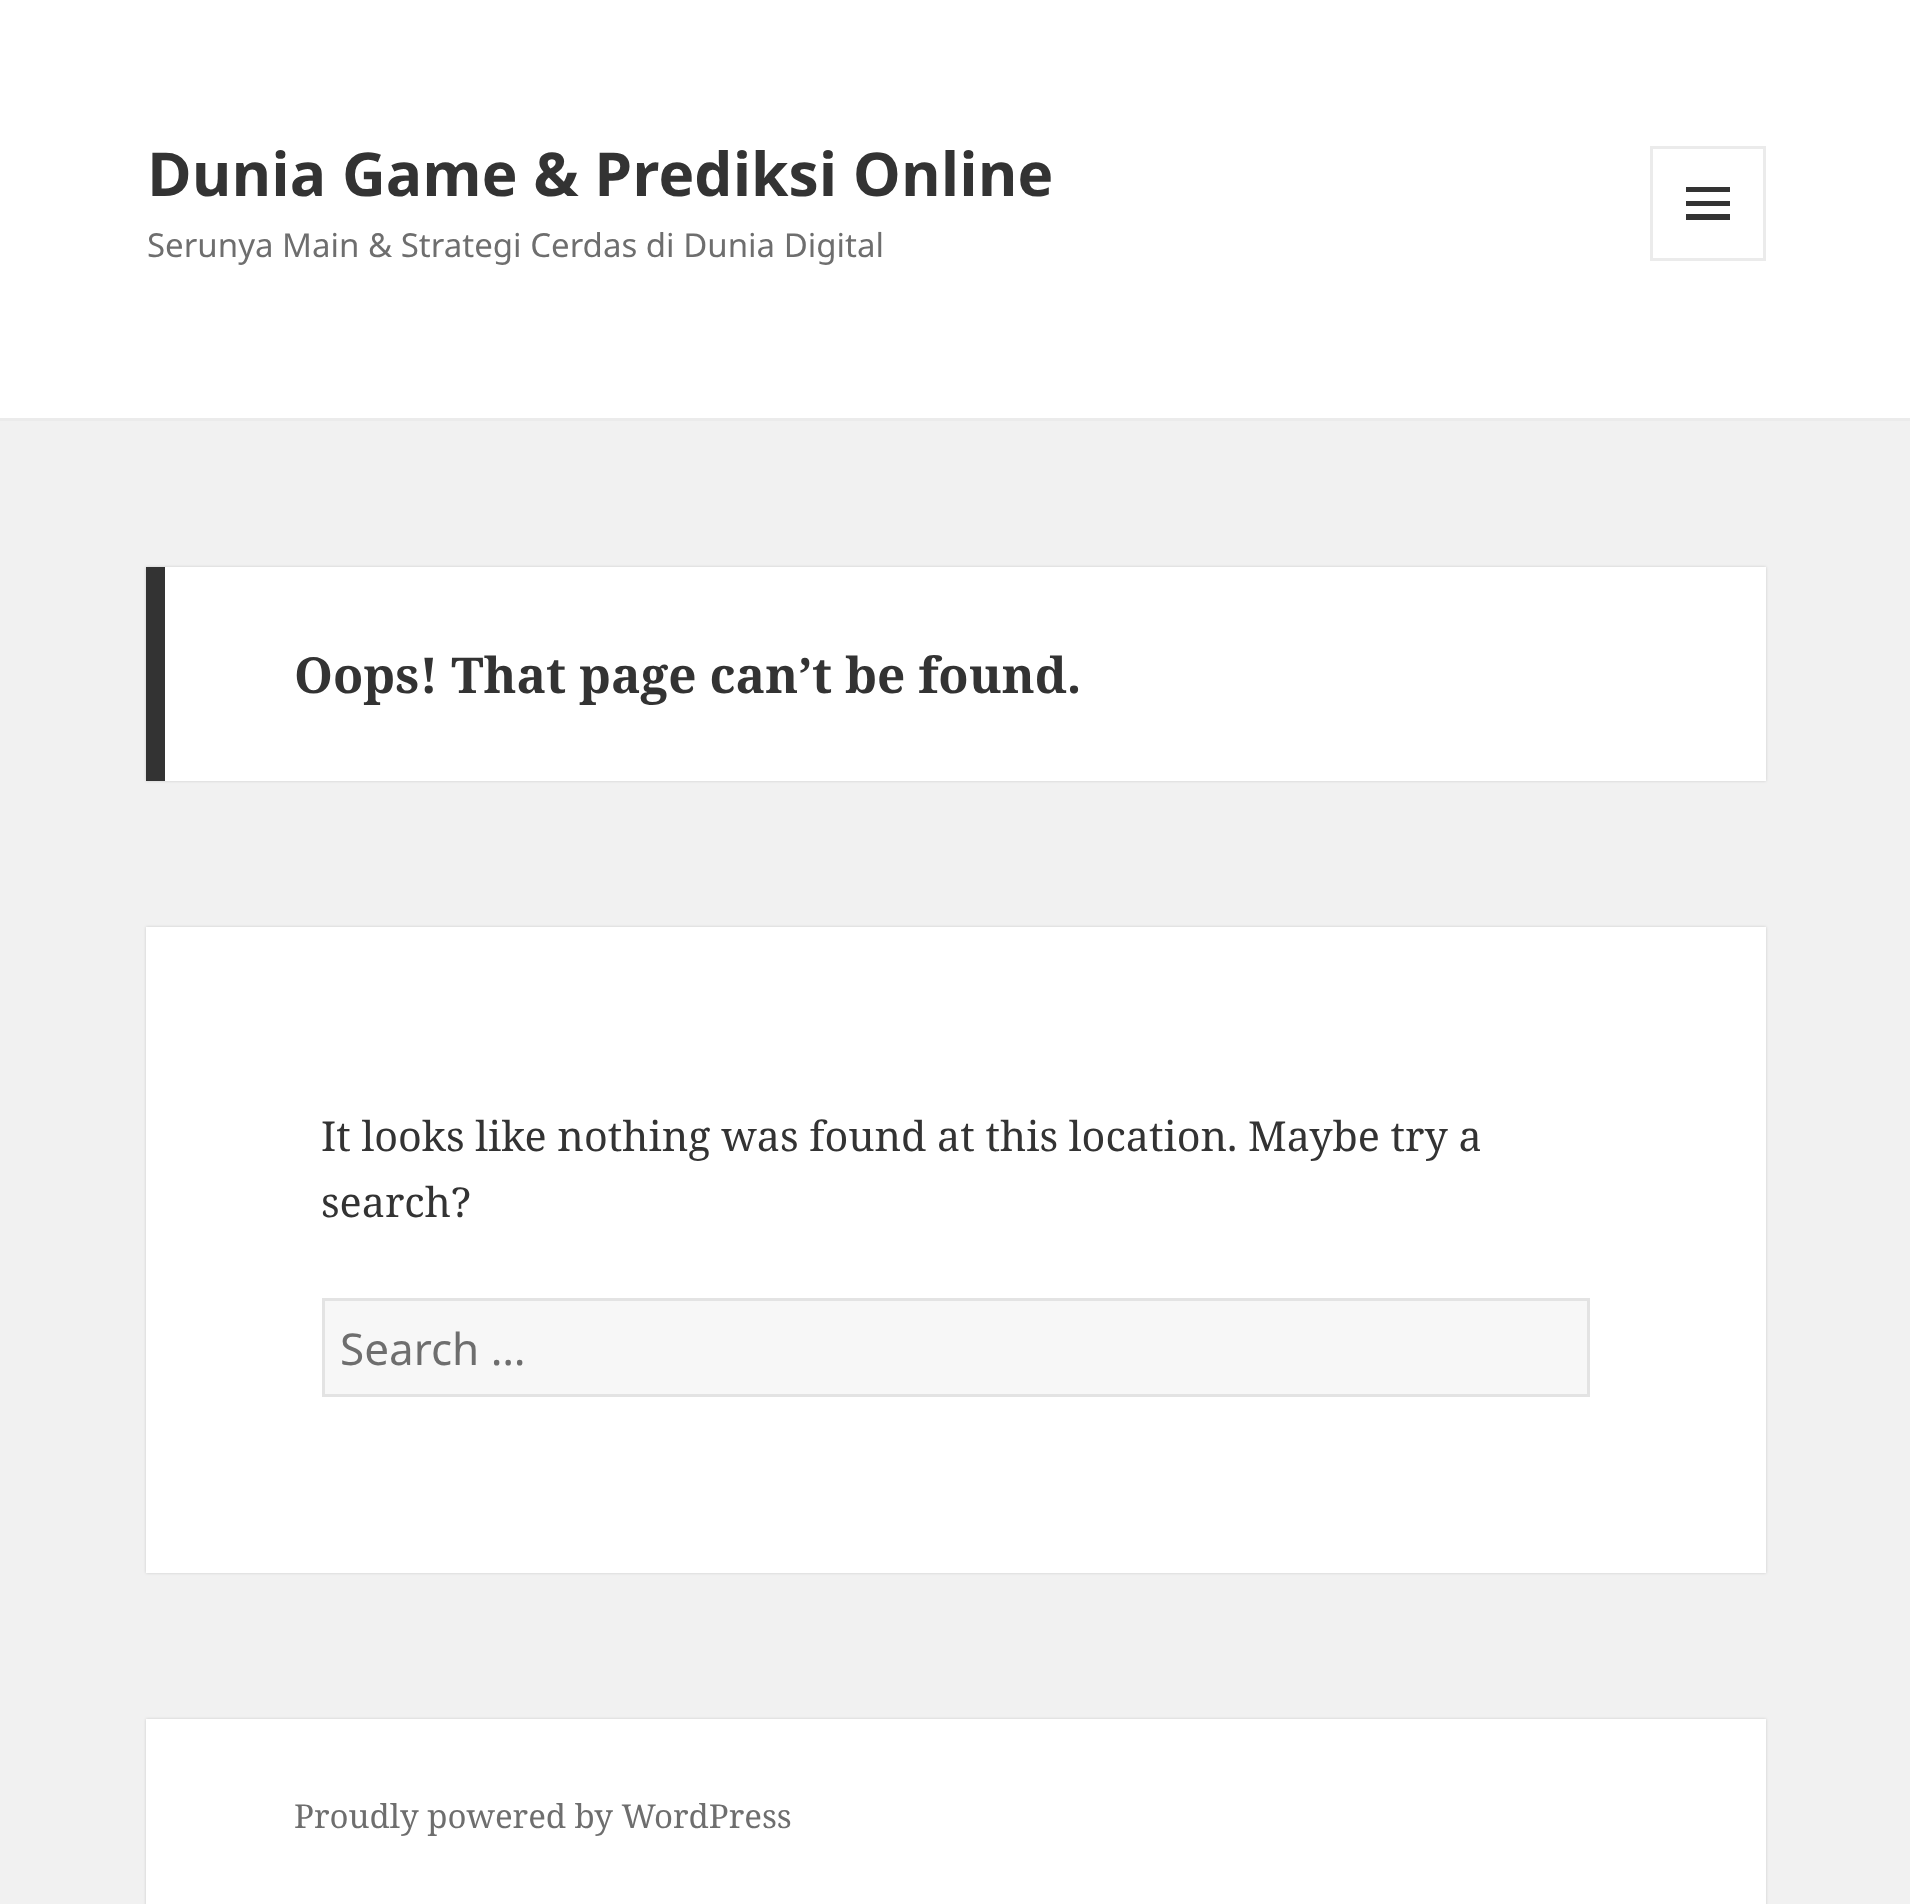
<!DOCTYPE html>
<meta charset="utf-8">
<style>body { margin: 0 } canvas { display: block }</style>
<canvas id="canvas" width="1910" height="1904"></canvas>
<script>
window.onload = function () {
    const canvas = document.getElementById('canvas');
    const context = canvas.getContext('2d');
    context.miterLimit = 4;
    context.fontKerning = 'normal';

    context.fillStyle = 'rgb(241, 241, 241)';
    context.fillRect(0, 0, 1910, 1904);
    context.fillStyle = 'rgb(255, 255, 255)';
    context.fillRect(0, 0, 1910, 418);
    context.fillStyle = 'rgb(235, 235, 235)';
    context.fillRect(0, 418, 1910, 3);
    context.strokeStyle = 'rgb(235, 235, 235)';
    context.lineWidth = 3;
    context.strokeRect(1651.5, 147.5, 113, 112);
    context.fillStyle = 'rgb(51, 51, 51)';
    context.beginPath();
    context.moveTo(1686, 220);
    context.lineTo(1686, 214);
    context.lineTo(1730, 214);
    context.lineTo(1730, 220);
    context.closePath();
    context.moveTo(1686, 187);
    context.lineTo(1730, 187);
    context.lineTo(1730, 192);
    context.lineTo(1686, 192);
    context.closePath();
    context.moveTo(1686, 206);
    context.lineTo(1686, 201);
    context.lineTo(1730, 201);
    context.lineTo(1730, 206);
    context.closePath();
    context.fill();
    context.fillStyle = 'rgba(0, 0, 0, 0.15)';
    context.filter = 'blur(1.5px)';
    context.beginPath();
    context.rect(146, 567, 1620, 214);
    context.fill();
    context.filter = 'none';
    context.fillStyle = 'rgb(255, 255, 255)';
    context.fillRect(165, 567, 1601, 214);
    context.fillStyle = 'rgb(51, 51, 51)';
    context.fillRect(146, 567, 19, 214);
    context.fillStyle = 'rgba(0, 0, 0, 0.15)';
    context.filter = 'blur(1.5px)';
    context.beginPath();
    context.rect(146, 927, 1620, 646);
    context.fill();
    context.filter = 'none';
    context.fillStyle = 'rgb(255, 255, 255)';
    context.fillRect(146, 927, 1620, 646);
    context.fillStyle = 'rgb(247, 247, 247)';
    context.beginPath();
    context.rect(323.5, 1299.5, 1265, 96);
    context.fill();
    context.strokeStyle = 'rgb(227, 227, 227)';
    context.stroke();
    context.fillStyle = 'rgba(0, 0, 0, 0.15)';
    context.filter = 'blur(1.5px)';
    context.beginPath();
    context.rect(146, 1719, 1620, 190);
    context.fill();
    context.filter = 'none';
    context.fillStyle = 'rgb(255, 255, 255)';
    context.fillRect(146, 1719, 1620, 185);
    context.font = 'bold 60.5px Noto Sans';
    context.fillStyle = 'rgb(51, 51, 51)';
    context.fillText('Dunia Game & Prediksi Online', 147, 196);
    context.font = '33px Noto Sans';
    context.fillStyle = 'rgb(110, 110, 110)';
    context.fillText('Serunya Main & Strategi Cerdas di Dunia Digital', 147, 257);
    context.font = 'bold 49.5px Noto Serif';
    context.fillStyle = 'rgb(51, 51, 51)';
    context.fillText('Oops! That page can’t be found.', 294, 693);
    context.font = '41.25px Noto Serif';
    context.fillText('It looks like nothing was found at this location. Maybe try a', 321, 1151);
    context.fillText('search?', 321, 1217);
    context.font = '44px Noto Sans';
    context.fillStyle = 'rgb(110, 110, 110)';
    context.fillText('Search …', 340, 1365);
    context.font = '33px Noto Serif';
    context.fillText('Proudly powered by WordPress', 294, 1828);
};
</script>
